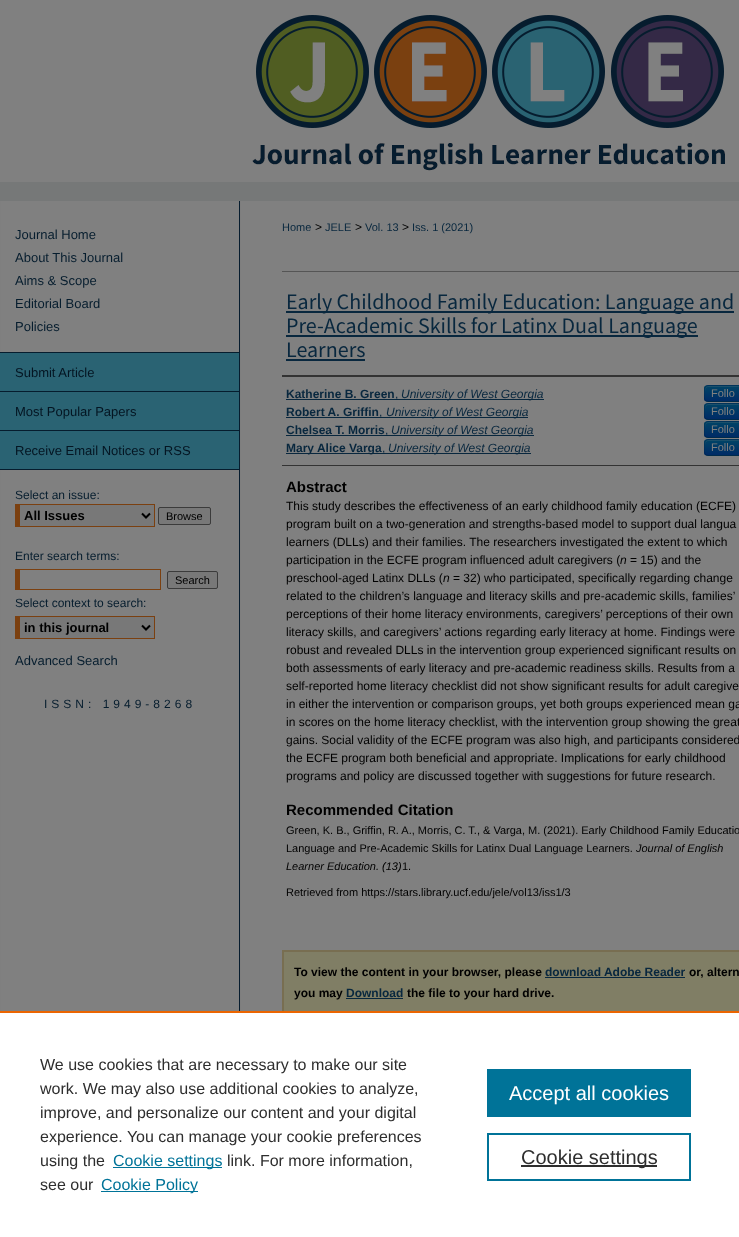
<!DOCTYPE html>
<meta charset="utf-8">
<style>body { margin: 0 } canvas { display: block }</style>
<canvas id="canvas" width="739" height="1237"></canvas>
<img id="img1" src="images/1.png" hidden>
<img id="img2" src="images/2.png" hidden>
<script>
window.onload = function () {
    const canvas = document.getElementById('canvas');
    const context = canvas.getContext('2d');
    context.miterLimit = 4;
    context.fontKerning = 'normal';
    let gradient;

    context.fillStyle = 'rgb(255, 255, 255)';
    context.fillRect(0, 0, 739, 1237);
    context.fillStyle = 'rgb(128, 128, 128)';
    context.fillRect(0, 0, 739, 15);
    context.drawImage(document.getElementById('img1'), 0, 15, 739, 186);
    context.drawImage(document.getElementById('img2'), 0, 201, 739, 810);
    context.fillStyle = 'rgb(42, 99, 115)';
    context.fillRect(0, 353, 239, 38);
    context.fillStyle = 'rgb(6, 29, 46)';
    context.fillRect(0, 352, 239, 1);
    context.fillRect(0, 391, 239, 1);
    context.fillStyle = 'rgb(42, 99, 115)';
    context.fillRect(0, 392, 239, 38);
    context.fillStyle = 'rgb(6, 29, 46)';
    context.fillRect(0, 430, 239, 1);
    context.fillStyle = 'rgb(42, 99, 115)';
    context.fillRect(0, 431, 239, 38);
    context.fillStyle = 'rgb(6, 29, 46)';
    context.fillRect(0, 469, 239, 1);
    context.fillStyle = 'rgb(120, 120, 120)';
    context.fillRect(20, 505, 134, 21);
    context.fillStyle = 'rgb(123, 64, 16)';
    context.fillRect(15, 504, 140, 1);
    context.fillRect(154, 504, 1, 23);
    context.fillRect(15, 526, 140, 1);
    context.fillRect(15, 504, 5, 23);
    context.beginPath();
    context.moveTo(142, 513.5);
    context.lineTo(146, 517.5);
    context.lineTo(150, 513.5);
    context.strokeStyle = 'rgb(0, 0, 0)';
    context.lineWidth = 2;
    context.stroke();
    context.fillStyle = 'rgb(120, 120, 120)';
    context.beginPath();
    context.roundRect(158.5, 507.5, 52, 17, 1.5);
    context.fill();
    context.strokeStyle = 'rgb(59, 59, 59)';
    context.lineWidth = 1;
    context.stroke();
    context.fillStyle = 'rgb(123, 64, 16)';
    context.fillRect(15, 569, 146, 1);
    context.fillRect(160, 569, 1, 21);
    context.fillRect(15, 589, 146, 1);
    context.fillRect(15, 569, 5, 21);
    context.fillStyle = 'rgb(120, 120, 120)';
    context.beginPath();
    context.roundRect(167.5, 571.5, 50, 17, 1.5);
    context.fill();
    context.stroke();
    context.fillRect(20, 617, 134, 21);
    context.fillStyle = 'rgb(123, 64, 16)';
    context.fillRect(15, 616, 140, 1);
    context.fillRect(154, 616, 1, 23);
    context.fillRect(15, 638, 140, 1);
    context.fillRect(15, 616, 5, 23);
    context.beginPath();
    context.moveTo(142, 625.5);
    context.lineTo(146, 629.5);
    context.lineTo(150, 625.5);
    context.strokeStyle = 'rgb(0, 0, 0)';
    context.lineWidth = 2;
    context.stroke();
    context.fillStyle = 'rgb(85, 85, 85)';
    context.fillRect(282, 271, 457, 1);
    context.fillStyle = 'rgb(8, 39, 62)';
    context.fillRect(286, 311, 448, 2);
    context.fillRect(286, 335, 412, 2);
    context.fillRect(286, 359, 79, 2);
    context.fillStyle = 'rgb(51, 51, 51)';
    context.fillRect(282, 375, 457, 2);
    context.fillRect(282, 465, 457, 1);
    context.fillStyle = 'rgb(8, 39, 62)';
    context.fillRect(286, 399, 258, 1);
    context.fillStyle = 'rgb(0, 58, 102)';
    context.beginPath();
    context.roundRect(704, 385, 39, 17, 4);
    context.fill();
    context.save();
    context.beginPath();
    context.roundRect(704, 385, 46, 17, 4);
    context.clip();
    gradient = context.createLinearGradient(727, 386, 727, 401);
    gradient.addColorStop(0, 'rgb(0, 68, 102)');
    gradient.addColorStop(1, 'rgb(0, 43, 102)');
    context.fillStyle = gradient;
    context.fillRect(704, 386, 35, 15);
    context.restore();
    context.fillStyle = 'rgba(128, 128, 128, 0.2)';
    context.beginPath();
    context.moveTo(708, 387);
    context.lineTo(733, 387);
    context.bezierCurveTo(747, 387, 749, 383, 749, 398);
    context.bezierCurveTo(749, 387, 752, 386, 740, 386);
    context.lineTo(714, 386);
    context.bezierCurveTo(707, 386, 705, 385, 705, 392);
    context.lineTo(705, 399);
    context.bezierCurveTo(705, 396, 704, 387, 708, 387);
    context.closePath();
    context.fill();
    context.beginPath();
    context.moveTo(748.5, 400.5);
    context.bezierCurveTo(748, 401, 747, 401.5, 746, 401.5);
    context.lineTo(708, 401.5);
    context.bezierCurveTo(707, 401.5, 706, 401, 705.5, 400.5);
    context.strokeStyle = 'rgba(0, 0, 0, 0.25)';
    context.lineWidth = 1;
    context.stroke();
    context.beginPath();
    context.moveTo(705.5, 400.5);
    context.bezierCurveTo(704, 398.5, 704.5, 395.5, 704.5, 393.5);
    context.bezierCurveTo(704.5, 384.5, 705, 385.5, 714.5, 385.5);
    context.lineTo(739.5, 385.5);
    context.bezierCurveTo(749, 385.5, 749.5, 384.5, 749.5, 393.5);
    context.bezierCurveTo(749.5, 395.5, 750, 398.5, 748.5, 400.5);
    context.strokeStyle = 'rgba(0, 0, 0, 0.1)';
    context.stroke();
    context.fillStyle = 'rgb(8, 39, 62)';
    context.fillRect(286, 417, 242, 1);
    context.fillStyle = 'rgb(0, 58, 102)';
    context.beginPath();
    context.roundRect(704, 403, 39, 17, 4);
    context.fill();
    context.save();
    context.beginPath();
    context.roundRect(704, 403, 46, 17, 4);
    context.clip();
    gradient = context.createLinearGradient(727, 404, 727, 419);
    gradient.addColorStop(0, 'rgb(0, 68, 102)');
    gradient.addColorStop(1, 'rgb(0, 43, 102)');
    context.fillStyle = gradient;
    context.fillRect(704, 404, 35, 15);
    context.restore();
    context.fillStyle = 'rgba(128, 128, 128, 0.2)';
    context.beginPath();
    context.moveTo(708, 405);
    context.lineTo(733, 405);
    context.bezierCurveTo(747, 405, 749, 401, 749, 416);
    context.bezierCurveTo(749, 405, 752, 404, 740, 404);
    context.lineTo(714, 404);
    context.bezierCurveTo(707, 404, 705, 403, 705, 410);
    context.lineTo(705, 417);
    context.bezierCurveTo(705, 414, 704, 405, 708, 405);
    context.closePath();
    context.fill();
    context.beginPath();
    context.moveTo(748.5, 418.5);
    context.bezierCurveTo(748, 419, 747, 419.5, 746, 419.5);
    context.lineTo(708, 419.5);
    context.bezierCurveTo(707, 419.5, 706, 419, 705.5, 418.5);
    context.strokeStyle = 'rgba(0, 0, 0, 0.25)';
    context.stroke();
    context.beginPath();
    context.moveTo(705.5, 418.5);
    context.bezierCurveTo(704, 416.5, 704.5, 413.5, 704.5, 411.5);
    context.bezierCurveTo(704.5, 402.5, 705, 403.5, 714.5, 403.5);
    context.lineTo(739.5, 403.5);
    context.bezierCurveTo(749, 403.5, 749.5, 402.5, 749.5, 411.5);
    context.bezierCurveTo(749.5, 413.5, 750, 416.5, 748.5, 418.5);
    context.strokeStyle = 'rgba(0, 0, 0, 0.1)';
    context.stroke();
    context.fillStyle = 'rgb(8, 39, 62)';
    context.fillRect(286, 435, 248, 1);
    context.fillStyle = 'rgb(0, 58, 102)';
    context.beginPath();
    context.roundRect(704, 421, 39, 17, 4);
    context.fill();
    context.save();
    context.beginPath();
    context.roundRect(704, 421, 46, 17, 4);
    context.clip();
    gradient = context.createLinearGradient(727, 422, 727, 437);
    gradient.addColorStop(0, 'rgb(0, 68, 102)');
    gradient.addColorStop(1, 'rgb(0, 43, 102)');
    context.fillStyle = gradient;
    context.fillRect(704, 422, 35, 15);
    context.restore();
    context.fillStyle = 'rgba(128, 128, 128, 0.2)';
    context.beginPath();
    context.moveTo(708, 423);
    context.lineTo(733, 423);
    context.bezierCurveTo(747, 423, 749, 419, 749, 434);
    context.bezierCurveTo(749, 423, 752, 422, 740, 422);
    context.lineTo(714, 422);
    context.bezierCurveTo(707, 422, 705, 421, 705, 428);
    context.lineTo(705, 435);
    context.bezierCurveTo(705, 432, 704, 423, 708, 423);
    context.closePath();
    context.fill();
    context.beginPath();
    context.moveTo(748.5, 436.5);
    context.bezierCurveTo(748, 437, 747, 437.5, 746, 437.5);
    context.lineTo(708, 437.5);
    context.bezierCurveTo(707, 437.5, 706, 437, 705.5, 436.5);
    context.strokeStyle = 'rgba(0, 0, 0, 0.25)';
    context.stroke();
    context.beginPath();
    context.moveTo(705.5, 436.5);
    context.bezierCurveTo(704, 434.5, 704.5, 431.5, 704.5, 429.5);
    context.bezierCurveTo(704.5, 420.5, 705, 421.5, 714.5, 421.5);
    context.lineTo(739.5, 421.5);
    context.bezierCurveTo(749, 421.5, 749.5, 420.5, 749.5, 429.5);
    context.bezierCurveTo(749.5, 431.5, 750, 434.5, 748.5, 436.5);
    context.strokeStyle = 'rgba(0, 0, 0, 0.1)';
    context.stroke();
    context.fillStyle = 'rgb(8, 39, 62)';
    context.fillRect(286, 453, 245, 1);
    context.fillStyle = 'rgb(0, 58, 102)';
    context.beginPath();
    context.roundRect(704, 439, 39, 17, 4);
    context.fill();
    context.save();
    context.beginPath();
    context.roundRect(704, 439, 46, 17, 4);
    context.clip();
    gradient = context.createLinearGradient(727, 440, 727, 455);
    gradient.addColorStop(0, 'rgb(0, 68, 102)');
    gradient.addColorStop(1, 'rgb(0, 43, 102)');
    context.fillStyle = gradient;
    context.fillRect(704, 440, 35, 15);
    context.restore();
    context.fillStyle = 'rgba(128, 128, 128, 0.2)';
    context.beginPath();
    context.moveTo(708, 441);
    context.lineTo(733, 441);
    context.bezierCurveTo(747, 441, 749, 437, 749, 452);
    context.bezierCurveTo(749, 441, 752, 440, 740, 440);
    context.lineTo(714, 440);
    context.bezierCurveTo(707, 440, 705, 439, 705, 446);
    context.lineTo(705, 453);
    context.bezierCurveTo(705, 450, 704, 441, 708, 441);
    context.closePath();
    context.fill();
    context.beginPath();
    context.moveTo(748.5, 454.5);
    context.bezierCurveTo(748, 455, 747, 455.5, 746, 455.5);
    context.lineTo(708, 455.5);
    context.bezierCurveTo(707, 455.5, 706, 455, 705.5, 454.5);
    context.strokeStyle = 'rgba(0, 0, 0, 0.25)';
    context.stroke();
    context.beginPath();
    context.moveTo(705.5, 454.5);
    context.bezierCurveTo(704, 452.5, 704.5, 449.5, 704.5, 447.5);
    context.bezierCurveTo(704.5, 438.5, 705, 439.5, 714.5, 439.5);
    context.lineTo(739.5, 439.5);
    context.bezierCurveTo(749, 439.5, 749.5, 438.5, 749.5, 447.5);
    context.bezierCurveTo(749.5, 449.5, 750, 452.5, 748.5, 454.5);
    context.strokeStyle = 'rgba(0, 0, 0, 0.1)';
    context.stroke();
    context.fillStyle = 'rgb(128, 126, 101)';
    context.fillRect(284, 952, 455, 59);
    context.strokeStyle = 'rgb(120, 110, 81)';
    context.lineWidth = 2;
    context.strokeRect(283, 951, 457, 140);
    context.fillStyle = 'rgb(8, 39, 62)';
    context.fillRect(545, 977, 140, 1);
    context.fillRect(346, 998, 57, 1);
    context.fillStyle = 'rgb(255, 255, 255)';
    context.fillRect(282, 1013, 457, 79);
    context.fillStyle = 'rgb(235, 101, 0)';
    context.fillRect(0, 1011, 739, 2);
    context.fillStyle = 'rgb(0, 115, 152)';
    context.fillRect(113, 1167, 109, 1);
    context.fillRect(101, 1191, 97, 1);
    context.fillRect(487, 1069, 204, 48);
    context.strokeStyle = 'rgb(0, 115, 152)';
    context.strokeRect(488, 1134, 202, 46);
    context.fillStyle = 'rgb(46, 46, 46)';
    context.fillRect(521, 1165, 136, 2);
    context.font = '13px Liberation Sans';
    context.fillStyle = 'rgb(6, 29, 46)';
    context.fillText('Journal Home', 15, 239);
    context.fillText('About This Journal', 15, 262);
    context.fillText('Aims & Scope', 15, 285);
    context.fillText('Editorial Board', 15, 308);
    context.fillText('Policies', 15, 331);
    context.fillStyle = 'rgb(4, 21, 34)';
    context.fillText('Submit Article', 15, 377);
    context.fillText('Most Popular Papers', 15, 416);
    context.fillText('Receive Email Notices or RSS', 15, 455);
    context.font = '12px Liberation Sans';
    context.fillStyle = 'rgb(6, 29, 46)';
    context.fillText('Select an issue:', 15, 499);
    context.font = 'bold 13px Liberation Sans';
    context.fillStyle = 'rgb(0, 0, 0)';
    context.fillText('All Issues', 24, 520);
    context.font = '11px Liberation Sans';
    context.fillText('Browse', 166, 520);
    context.font = '12px Liberation Sans';
    context.fillStyle = 'rgb(6, 29, 46)';
    context.fillText('Enter search terms:', 15, 560);
    context.font = '11px Liberation Sans';
    context.fillStyle = 'rgb(0, 0, 0)';
    context.fillText('Search', 175, 584);
    context.font = '12px Liberation Sans';
    context.fillStyle = 'rgb(6, 29, 46)';
    context.fillText('Select context to search:', 15, 607);
    context.font = 'bold 13px Liberation Sans';
    context.fillStyle = 'rgb(0, 0, 0)';
    context.fillText('in this journal', 24, 632);
    context.font = '13px Liberation Sans';
    context.fillStyle = 'rgb(6, 29, 46)';
    context.fillText('Advanced Search', 15, 665);
    context.letterSpacing = '4px';
    context.font = '12px Liberation Sans';
    context.fillText('ISSN: 1949-8268', 44, 708);
    context.letterSpacing = '0px';
    context.font = '11px Liberation Sans';
    context.fillStyle = 'rgb(8, 39, 62)';
    context.fillText('Home', 282, 231);
    context.font = '12px Liberation Sans';
    context.fillStyle = 'rgb(0, 0, 0)';
    context.fillText('>', 315, 231);
    context.font = '11px Liberation Sans';
    context.fillStyle = 'rgb(8, 39, 62)';
    context.fillText('JELE', 325, 231);
    context.font = '12px Liberation Sans';
    context.fillStyle = 'rgb(0, 0, 0)';
    context.fillText('>', 355, 231);
    context.font = '11px Liberation Sans';
    context.fillStyle = 'rgb(8, 39, 62)';
    context.fillText('Vol. 13', 365, 231);
    context.font = '12px Liberation Sans';
    context.fillStyle = 'rgb(0, 0, 0)';
    context.fillText('>', 402, 231);
    context.font = '11px Liberation Sans';
    context.fillStyle = 'rgb(8, 39, 62)';
    context.fillText('Iss. 1 (2021)', 412, 231);
    context.font = '22px Source Sans Pro';
    context.fillText('Early Childhood Family Education: Language and', 286, 309);
    context.fillText('Pre-Academic Skills for Latinx Dual Language', 286, 333);
    context.fillText('Learners', 286, 357);
    context.font = 'bold 12px Liberation Sans';
    context.fillText('Katherine B. Green', 286, 398);
    context.font = '12px Liberation Sans';
    context.fillText(',', 395, 398);
    context.font = 'italic 12px Liberation Sans';
    context.fillText('University of West Georgia', 401, 398);
    context.font = '11px Liberation Sans';
    context.fillStyle = 'rgb(128, 128, 128)';
    context.fillText('Follo', 711, 397);
    context.font = 'bold 12px Liberation Sans';
    context.fillStyle = 'rgb(8, 39, 62)';
    context.fillText('Robert A. Griffin', 286, 416);
    context.font = '12px Liberation Sans';
    context.fillText(',', 379, 416);
    context.font = 'italic 12px Liberation Sans';
    context.fillText('University of West Georgia', 386, 416);
    context.font = '11px Liberation Sans';
    context.fillStyle = 'rgb(128, 128, 128)';
    context.fillText('Follo', 711, 415);
    context.font = 'bold 12px Liberation Sans';
    context.fillStyle = 'rgb(8, 39, 62)';
    context.fillText('Chelsea T. Morris', 286, 434);
    context.font = '12px Liberation Sans';
    context.fillText(',', 385, 434);
    context.font = 'italic 12px Liberation Sans';
    context.fillText('University of West Georgia', 391, 434);
    context.font = '11px Liberation Sans';
    context.fillStyle = 'rgb(128, 128, 128)';
    context.fillText('Follo', 711, 433);
    context.font = 'bold 12px Liberation Sans';
    context.fillStyle = 'rgb(8, 39, 62)';
    context.fillText('Mary Alice Varga', 286, 452);
    context.font = '12px Liberation Sans';
    context.fillText(',', 382, 452);
    context.font = 'italic 12px Liberation Sans';
    context.fillText('University of West Georgia', 388, 452);
    context.font = '11px Liberation Sans';
    context.fillStyle = 'rgb(128, 128, 128)';
    context.fillText('Follo', 711, 451);
    context.font = 'bold 15px Liberation Sans';
    context.fillStyle = 'rgb(0, 0, 0)';
    context.fillText('Abstract', 286, 492);
    context.font = '12px Liberation Sans';
    context.fillText('This study describes the effectiveness of an early childhood family education (ECFE)', 286, 510);
    context.fillText('program built on a two-generation and strengths-based model to support dual langua', 286, 528);
    context.fillText('learners (DLLs) and their families. The researchers investigated the extent to which', 286, 546);
    context.fillText('participation in the ECFE program influenced adult caregivers (', 286, 564);
    context.font = 'italic 12px Liberation Sans';
    context.fillText('n', 620, 564);
    context.font = '12px Liberation Sans';
    context.fillText('= 15) and the', 630, 564);
    context.fillText('preschool-aged Latinx DLLs (', 286, 582);
    context.font = 'italic 12px Liberation Sans';
    context.fillText('n', 443, 582);
    context.font = '12px Liberation Sans';
    context.fillText('= 32) who participated, specifically regarding change', 453, 582);
    context.fillText('related to the children’s language and literacy skills and pre-academic skills, families’', 286, 600);
    context.fillText('perceptions of their home literacy environments, caregivers’ perceptions of their own', 286, 618);
    context.fillText('literacy skills, and caregivers’ actions regarding early literacy at home. Findings were', 286, 636);
    context.fillText('robust and revealed DLLs in the intervention group experienced significant results on', 286, 654);
    context.fillText('both assessments of early literacy and pre-academic readiness skills. Results from a', 286, 672);
    context.fillText('self-reported home literacy checklist did not show significant results for adult caregive', 286, 690);
    context.fillText('in either the intervention or comparison groups, yet both groups experienced mean ga', 286, 708);
    context.fillText('in scores on the home literacy checklist, with the intervention group showing the great', 286, 726);
    context.fillText('gains. Social validity of the ECFE program was also high, and participants considered', 286, 744);
    context.fillText('the ECFE program both beneficial and appropriate. Implications for early childhood', 286, 762);
    context.fillText('programs and policy are discussed together with suggestions for future research.', 286, 780);
    context.font = 'bold 15px Liberation Sans';
    context.fillText('Recommended Citation', 286, 815);
    context.font = '11px Liberation Sans';
    context.fillText('Green, K. B., Griffin, R. A., Morris, C. T., & Varga, M. (2021). Early Childhood Family Educatio', 286, 834);
    context.fillText('Language and Pre-Academic Skills for Latinx Dual Language Learners.', 286, 852);
    context.font = 'italic 11px Liberation Sans';
    context.fillText('Journal of English', 636, 852);
    context.fillText('Learner Education. (13)', 286, 870);
    context.font = '11px Liberation Sans';
    context.fillText('1.', 402, 870);
    context.fillText('Retrieved from https://stars.library.ucf.edu/jele/vol13/iss1/3', 286, 896);
    context.font = 'bold 12px Liberation Sans';
    context.fillText('To view the content in your browser, please', 294, 976);
    context.fillStyle = 'rgb(8, 39, 62)';
    context.fillText('download Adobe Reader', 545, 976);
    context.fillStyle = 'rgb(0, 0, 0)';
    context.fillText('or, altern', 689, 976);
    context.fillText('you may', 294, 997);
    context.fillStyle = 'rgb(8, 39, 62)';
    context.fillText('Download', 346, 997);
    context.fillStyle = 'rgb(0, 0, 0)';
    context.fillText('the file to your hard drive.', 407, 997);
    context.font = '16px Liberation Sans';
    context.fillStyle = 'rgb(46, 46, 46)';
    context.fillText('We use cookies that are necessary to make our site', 40, 1070);
    context.fillText('work. We may also use additional cookies to analyze,', 40, 1094);
    context.fillText('improve, and personalize our content and your digital', 40, 1118);
    context.fillText('experience. You can manage your cookie preferences', 40, 1142);
    context.fillText('using the', 40, 1166);
    context.fillStyle = 'rgb(0, 115, 152)';
    context.fillText('Cookie settings', 113, 1166);
    context.fillStyle = 'rgb(46, 46, 46)';
    context.fillText('link. For more information,', 227, 1166);
    context.fillText('see our', 40, 1190);
    context.fillStyle = 'rgb(0, 115, 152)';
    context.fillText('Cookie Policy', 101, 1190);
    context.font = '20px Liberation Sans';
    context.fillStyle = 'rgb(255, 255, 255)';
    context.fillText('Accept all cookies', 509, 1100);
    context.fillStyle = 'rgb(46, 46, 46)';
    context.fillText('Cookie settings', 521, 1164);
};
</script>
